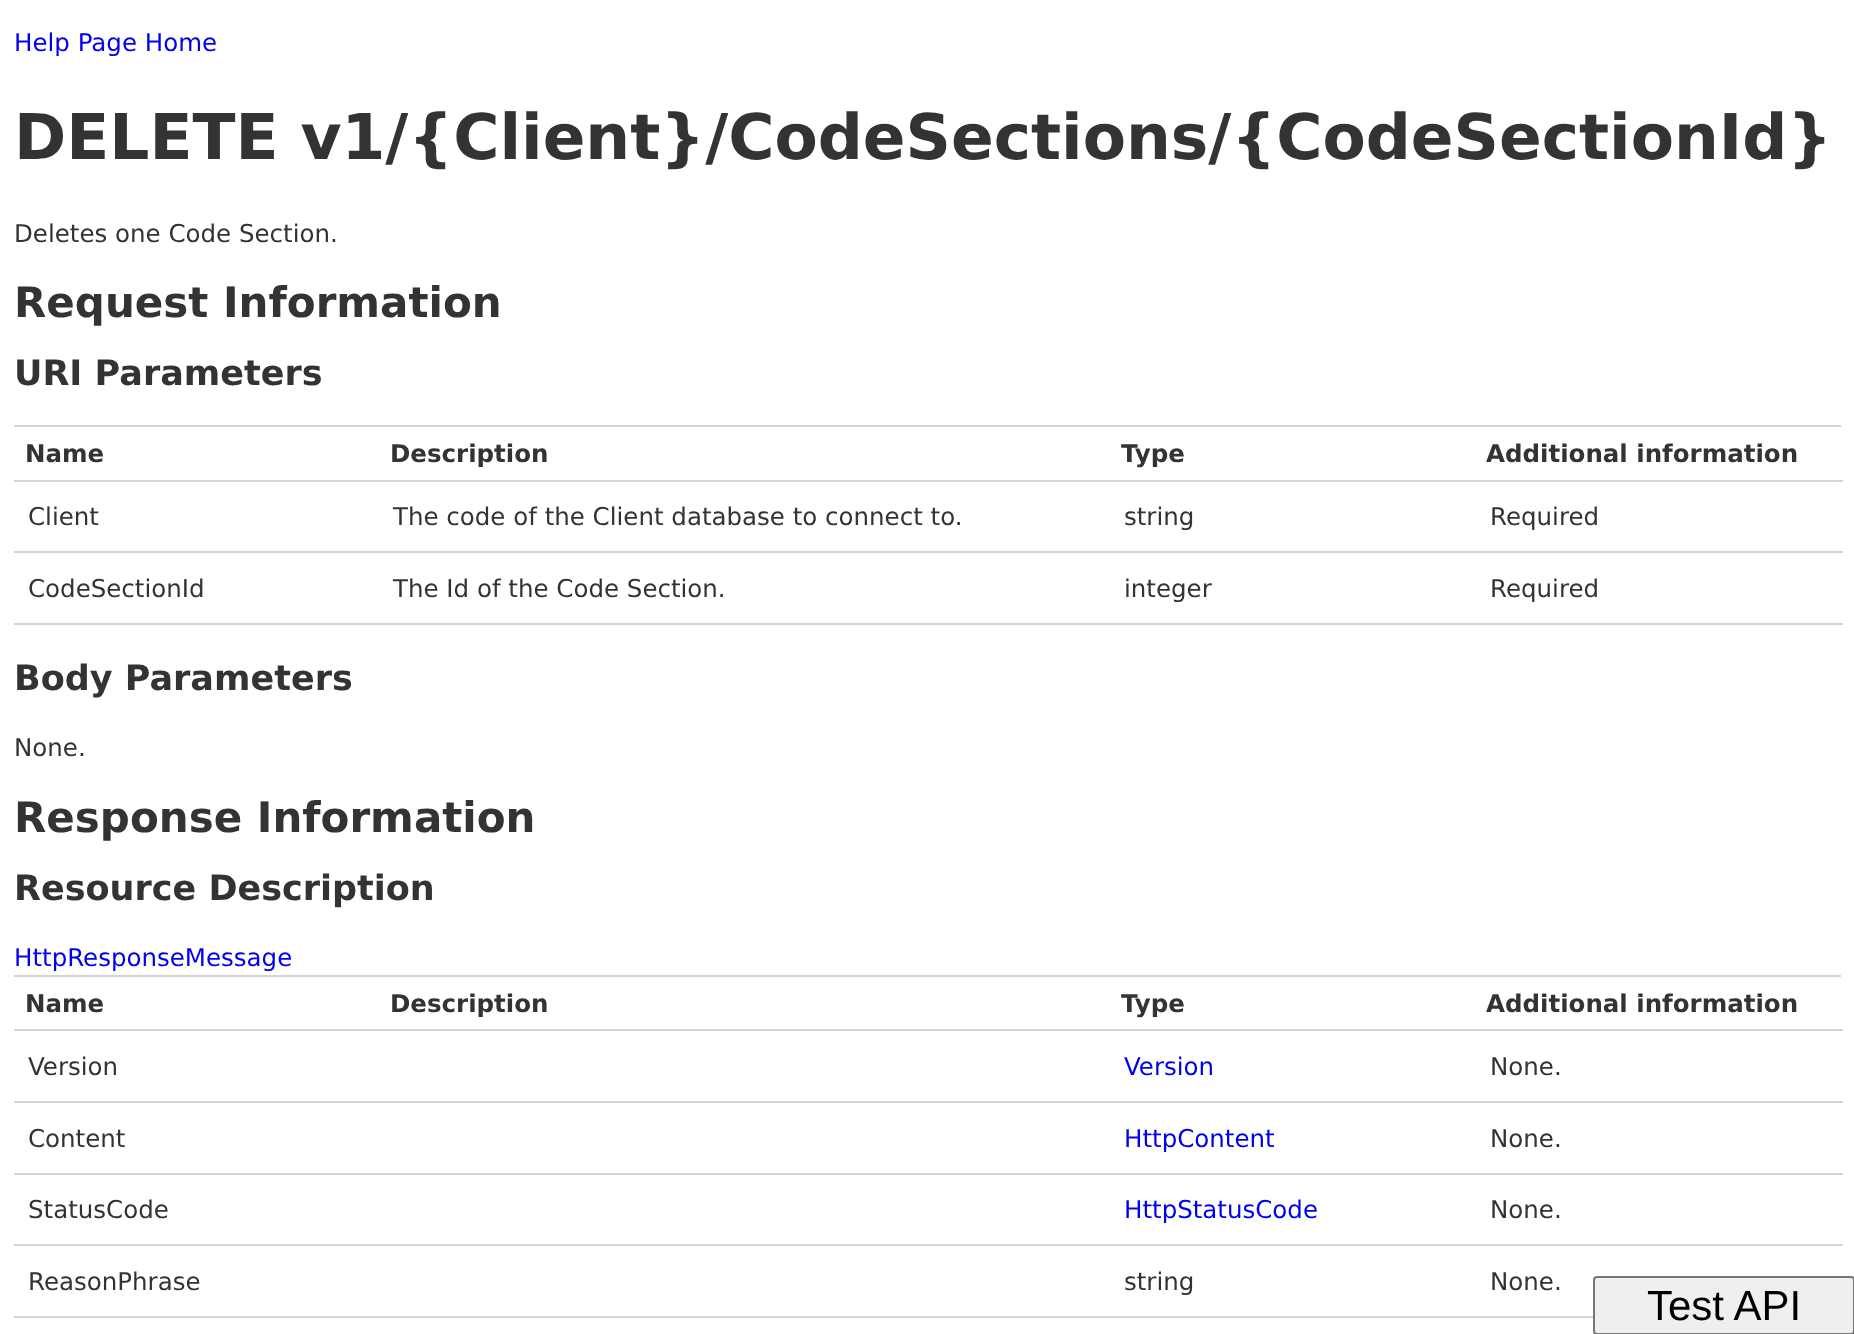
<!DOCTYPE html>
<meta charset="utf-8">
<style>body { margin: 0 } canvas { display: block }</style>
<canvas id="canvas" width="1854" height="1334"></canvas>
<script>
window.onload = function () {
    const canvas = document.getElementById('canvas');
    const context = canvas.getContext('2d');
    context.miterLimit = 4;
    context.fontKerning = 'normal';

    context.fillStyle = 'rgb(255, 255, 255)';
    context.fillRect(0, 0, 1854, 1334);
    context.fillStyle = 'rgb(212, 212, 212)';
    context.fillRect(14, 425, 1827, 2);
    context.fillRect(14, 480, 1829, 2);
    context.fillRect(14, 551, 1829, 2);
    context.fillRect(14, 623, 1829, 2);
    context.fillRect(14, 975, 1827, 2);
    context.fillRect(14, 1029, 1829, 2);
    context.fillRect(14, 1101, 1829, 2);
    context.fillRect(14, 1173, 1829, 2);
    context.fillRect(14, 1244, 1829, 2);
    context.fillRect(14, 1316, 1579, 2);
    context.fillStyle = 'rgb(239, 239, 239)';
    context.beginPath();
    context.roundRect(1594, 1277, 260, 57, 3);
    context.fill();
    context.strokeStyle = 'rgb(118, 118, 118)';
    context.lineWidth = 2;
    context.stroke();
    context.font = '24.5px DejaVu Sans';
    context.fillStyle = 'rgb(0, 0, 238)';
    context.fillText('Help Page Home', 14, 51);
    context.font = 'bold 63px DejaVu Sans';
    context.fillStyle = 'rgb(51, 51, 51)';
    context.fillText('DELETE v1/{Client}/CodeSections/{CodeSectionId}', 14, 159);
    context.font = '24.5px DejaVu Sans';
    context.fillText('Deletes one Code Section.', 14, 242);
    context.font = 'bold 42px DejaVu Sans';
    context.fillText('Request Information', 14, 317);
    context.font = 'bold 35px DejaVu Sans';
    context.fillText('URI Parameters', 14, 385);
    context.font = 'bold 24.5px DejaVu Sans';
    context.fillText('Name', 25, 462);
    context.fillText('Description', 390, 462);
    context.fillText('Type', 1121, 462);
    context.fillText('Additional information', 1486, 462);
    context.font = '24.5px DejaVu Sans';
    context.fillText('Client', 28, 525);
    context.fillText('The code of the Client database to connect to.', 393, 525);
    context.fillText('string', 1124, 525);
    context.fillText('Required', 1490, 525);
    context.fillText('CodeSectionId', 28, 597);
    context.fillText('The Id of the Code Section.', 393, 597);
    context.fillText('integer', 1124, 597);
    context.fillText('Required', 1490, 597);
    context.font = 'bold 35px DejaVu Sans';
    context.fillText('Body Parameters', 14, 690);
    context.font = '24.5px DejaVu Sans';
    context.fillText('None.', 14, 756);
    context.font = 'bold 42px DejaVu Sans';
    context.fillText('Response Information', 14, 832);
    context.font = 'bold 35px DejaVu Sans';
    context.fillText('Resource Description', 14, 900);
    context.font = '24.5px DejaVu Sans';
    context.fillStyle = 'rgb(0, 0, 238)';
    context.fillText('HttpResponseMessage', 14, 966);
    context.font = 'bold 24.5px DejaVu Sans';
    context.fillStyle = 'rgb(51, 51, 51)';
    context.fillText('Name', 25, 1012);
    context.fillText('Description', 390, 1012);
    context.fillText('Type', 1121, 1012);
    context.fillText('Additional information', 1486, 1012);
    context.font = '24.5px DejaVu Sans';
    context.fillText('Version', 28, 1075);
    context.fillStyle = 'rgb(0, 0, 238)';
    context.fillText('Version', 1124, 1075);
    context.fillStyle = 'rgb(51, 51, 51)';
    context.fillText('None.', 1490, 1075);
    context.fillText('Content', 28, 1147);
    context.fillStyle = 'rgb(0, 0, 238)';
    context.fillText('HttpContent', 1124, 1147);
    context.fillStyle = 'rgb(51, 51, 51)';
    context.fillText('None.', 1490, 1147);
    context.fillText('StatusCode', 28, 1218);
    context.fillStyle = 'rgb(0, 0, 238)';
    context.fillText('HttpStatusCode', 1124, 1218);
    context.fillStyle = 'rgb(51, 51, 51)';
    context.fillText('None.', 1490, 1218);
    context.fillText('ReasonPhrase', 28, 1290);
    context.fillText('string', 1124, 1290);
    context.fillText('None.', 1490, 1290);
    context.font = '42px Liberation Sans';
    context.fillStyle = 'rgb(0, 0, 0)';
    context.fillText('Test API', 1647, 1320);
};
</script>
